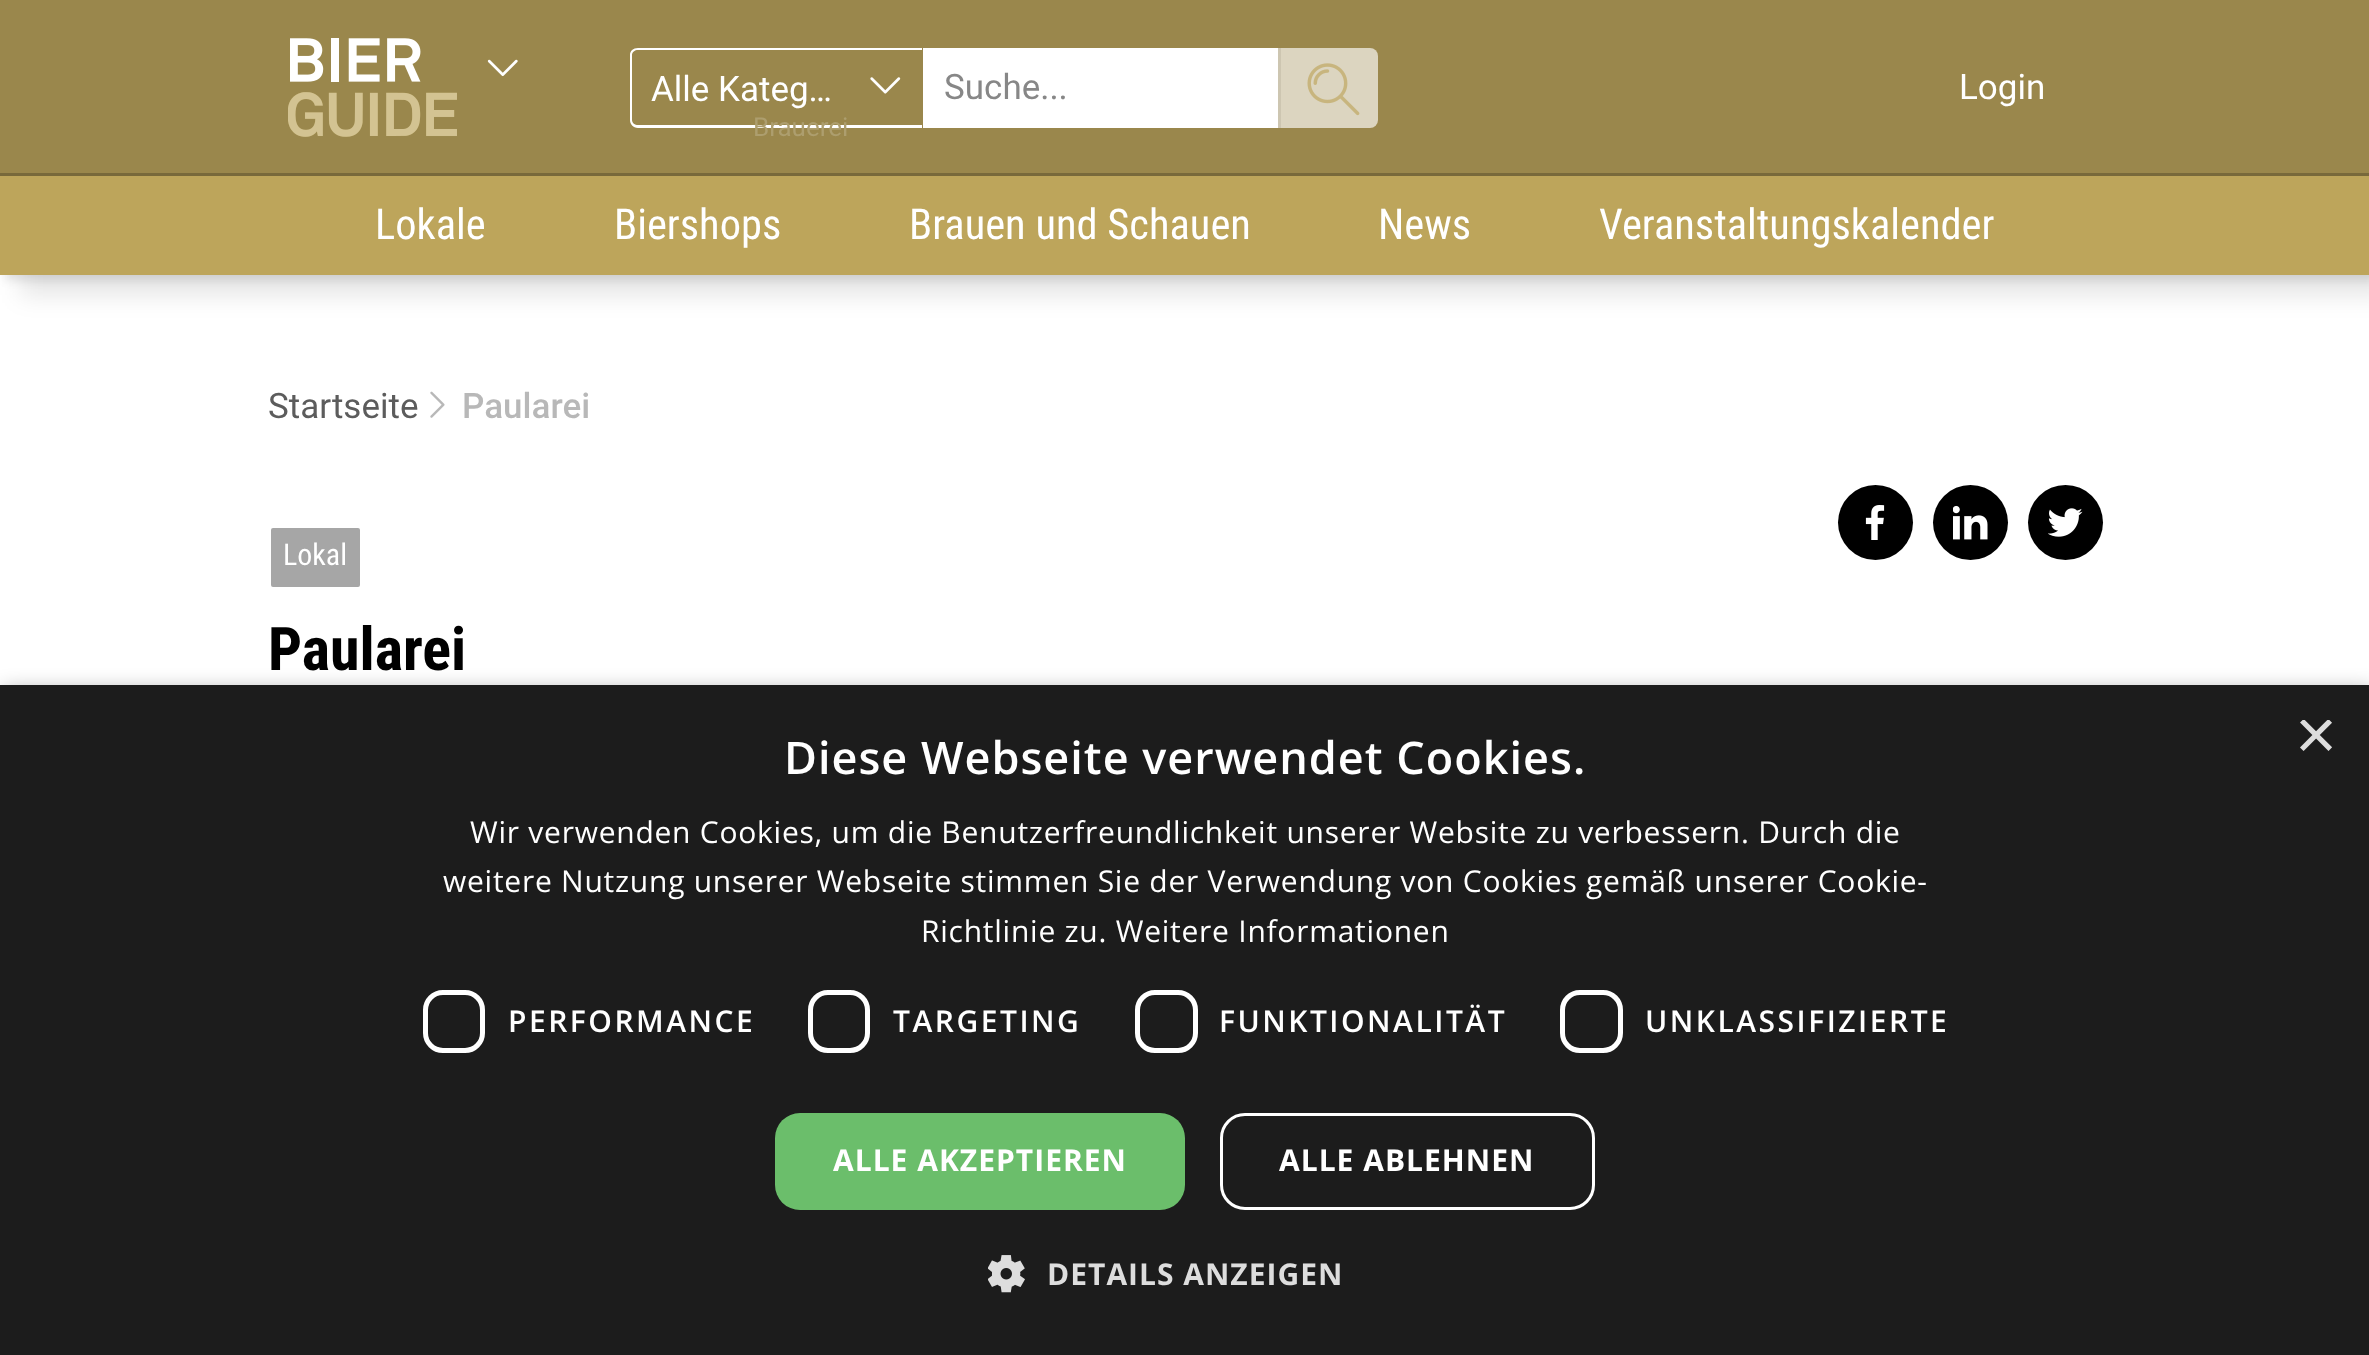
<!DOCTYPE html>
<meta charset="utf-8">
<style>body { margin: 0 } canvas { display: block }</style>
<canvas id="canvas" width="2369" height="1355"></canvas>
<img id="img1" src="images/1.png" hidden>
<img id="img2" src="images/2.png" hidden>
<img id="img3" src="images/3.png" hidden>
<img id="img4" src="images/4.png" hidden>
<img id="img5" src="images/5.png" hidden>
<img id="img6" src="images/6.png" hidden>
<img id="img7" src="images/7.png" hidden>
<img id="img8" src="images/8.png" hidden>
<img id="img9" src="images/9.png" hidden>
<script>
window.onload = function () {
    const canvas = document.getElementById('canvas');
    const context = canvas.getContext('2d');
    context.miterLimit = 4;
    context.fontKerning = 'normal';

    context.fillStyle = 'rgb(255, 255, 255)';
    context.fillRect(0, 0, 2369, 1355);
    context.fillStyle = 'rgba(0, 0, 0, 0.1)';
    context.filter = 'blur(5px)';
    context.beginPath();
    context.rect(5, 178, 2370, 102);
    context.fill();
    context.filter = 'none';
    context.filter = 'blur(12.5px)';
    context.beginPath();
    context.rect(20, 193, 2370, 102);
    context.fill();
    context.filter = 'none';
    context.fillStyle = 'rgb(154, 135, 76)';
    context.fillRect(0, 0, 2369, 173);
    context.fillStyle = 'rgb(120, 105, 59)';
    context.fillRect(0, 173, 2369, 3);
    context.drawImage(document.getElementById('img1'), 288, 38, 169, 99);
    context.drawImage(document.getElementById('img2'), 487, 59, 31, 18);
    context.fillStyle = 'rgb(255, 255, 255)';
    context.beginPath();
    context.moveTo(638, 48);
    context.lineTo(922, 48);
    context.lineTo(922, 128);
    context.lineTo(638, 128);
    context.bezierCurveTo(633, 128, 630, 124, 630, 120);
    context.lineTo(630, 55);
    context.bezierCurveTo(630, 51, 633, 48, 638, 48);
    context.closePath();
    context.moveTo(638, 50);
    context.lineTo(922, 50);
    context.lineTo(922, 125);
    context.lineTo(638, 125);
    context.bezierCurveTo(635, 125, 632, 123, 632, 120);
    context.lineTo(632, 55);
    context.bezierCurveTo(632, 52, 635, 50, 638, 50);
    context.closePath();
    context.fill('evenodd');
    context.drawImage(document.getElementById('img3'), 870, 77, 31, 17);
    context.fillRect(923, 48, 355, 80);
    context.fillStyle = 'rgb(220, 213, 192)';
    context.beginPath();
    context.roundRect(1278, 48, 100, 80, [0, 8, 8, 0]);
    context.fill();
    context.fillStyle = 'rgb(205, 198, 177)';
    context.fillRect(1278, 48, 3, 80);
    context.drawImage(document.getElementById('img4'), 1307, 63, 53, 53);
    context.fillStyle = 'rgb(189, 165, 91)';
    context.fillRect(0, 176, 2369, 99);
    context.drawImage(document.getElementById('img5'), 430, 391, 15, 27);
    context.fillStyle = 'rgb(0, 0, 0)';
    context.beginPath();
    context.arc(1875.5, 522.5, 37.5, 0, 2 * Math.PI);
    context.fill();
    context.drawImage(document.getElementById('img6'), 1865, 505, 20, 35);
    context.beginPath();
    context.arc(1970.5, 522.5, 37.5, 0, 2 * Math.PI);
    context.fill();
    context.drawImage(document.getElementById('img7'), 1953, 505, 35, 35);
    context.beginPath();
    context.arc(2065.5, 522.5, 37.5, 0, 2 * Math.PI);
    context.fill();
    context.drawImage(document.getElementById('img8'), 2048, 508, 35, 29);
    context.fillStyle = 'rgb(166, 166, 166)';
    context.beginPath();
    context.roundRect(269.5, 526.5, 92, 62, 3.5);
    context.fill();
    context.strokeStyle = 'rgb(255, 255, 255)';
    context.lineWidth = 3;
    context.stroke();
    context.fillStyle = 'rgba(0, 0, 0, 0.35)';
    context.filter = 'blur(10px)';
    context.beginPath();
    context.rect(3, 690, 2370, 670);
    context.fill();
    context.filter = 'none';
    context.fillStyle = 'rgb(28, 28, 28)';
    context.fillRect(0, 685, 2369, 670);
    context.beginPath();
    context.roundRect(425.5, 992.5, 57, 58, 17.5);
    context.lineWidth = 5;
    context.stroke();
    context.beginPath();
    context.roundRect(810.5, 992.5, 57, 58, 17.5);
    context.stroke();
    context.beginPath();
    context.roundRect(1137.5, 992.5, 58, 58, 17.5);
    context.stroke();
    context.beginPath();
    context.roundRect(1562.5, 992.5, 58, 58, 17.5);
    context.stroke();
    context.fillStyle = 'rgb(107, 190, 107)';
    context.beginPath();
    context.roundRect(775, 1113, 410, 97, 25);
    context.fill();
    context.beginPath();
    context.roundRect(1221.5, 1114.5, 372, 94, 23.5);
    context.lineWidth = 3;
    context.stroke();
    context.drawImage(document.getElementById('img9'), 988, 1255, 37, 38);
    context.font = '35px Roboto';
    context.fillStyle = 'rgb(255, 255, 255)';
    context.fillText('Alle Kateg…', 651, 101);
    context.font = '26px Roboto';
    context.fillStyle = 'rgb(173, 158, 110)';
    context.fillText('Brauerei', 753, 136);
    context.font = '35px Roboto';
    context.fillStyle = 'rgb(135, 135, 135)';
    context.fillText('Suche...', 944, 99);
    context.fillStyle = 'rgb(255, 255, 255)';
    context.fillText('Login', 1959, 99);
    context.font = '42.5px Roboto Condensed';
    context.fillText('Lokale', 375, 239);
    context.fillText('Biershops', 614, 239);
    context.fillText('Brauen und Schauen', 909, 239);
    context.fillText('News', 1378, 239);
    context.fillText('Veranstaltungskalender', 1599, 239);
    context.font = '35px Roboto';
    context.fillStyle = 'rgb(92, 92, 92)';
    context.fillText('Startseite', 268, 418);
    context.font = '500 35px Roboto';
    context.fillStyle = 'rgb(184, 184, 184)';
    context.fillText('Paularei', 462, 418);
    context.font = '30px Roboto Condensed';
    context.fillStyle = 'rgb(255, 255, 255)';
    context.fillText('Lokal', 283, 565);
    context.font = 'bold 60px Roboto Condensed';
    context.fillStyle = 'rgb(0, 0, 0)';
    context.fillText('Paularei', 268, 670);
    context.save();
    context.beginPath();
    context.rect(2295, 720, 38, 38);
    context.clip();
    context.font = '72px Liberation Sans';
    context.fillStyle = 'rgb(221, 221, 221)';
    context.fillText('×', 2295, 759);
    context.restore();
    context.letterSpacing = '1px';
    context.font = '600 45px Open Sans';
    context.fillStyle = 'rgb(255, 255, 255)';
    context.fillText('Diese Webseite verwendet Cookies.', 784, 774);
    context.letterSpacing = '0.75px';
    context.font = '30px Open Sans';
    context.fillText('Wir verwenden Cookies, um die Benutzerfreundlichkeit unserer Website zu verbessern. Durch die', 470, 843);
    context.fillText('weitere Nutzung unserer Webseite stimmen Sie der Verwendung von Cookies gemäß unserer Cookie-', 443, 892);
    context.fillText('Richtlinie zu. Weitere Informationen', 921, 942);
    context.letterSpacing = '2.5px';
    context.font = '600 30px Open Sans';
    context.fillText('PERFORMANCE', 508, 1032);
    context.fillText('TARGETING', 893, 1032);
    context.fillText('FUNKTIONALITÄT', 1219, 1032);
    context.fillText('UNKLASSIFIZIERTE', 1645, 1032);
    context.letterSpacing = '1px';
    context.font = 'bold 30px Open Sans';
    context.fillText('ALLE AKZEPTIEREN', 833, 1171);
    context.fillText('ALLE ABLEHNEN', 1279, 1171);
    context.fillStyle = 'rgb(221, 221, 221)';
    context.fillText('DETAILS ANZEIGEN', 1047, 1285);
};
</script>
